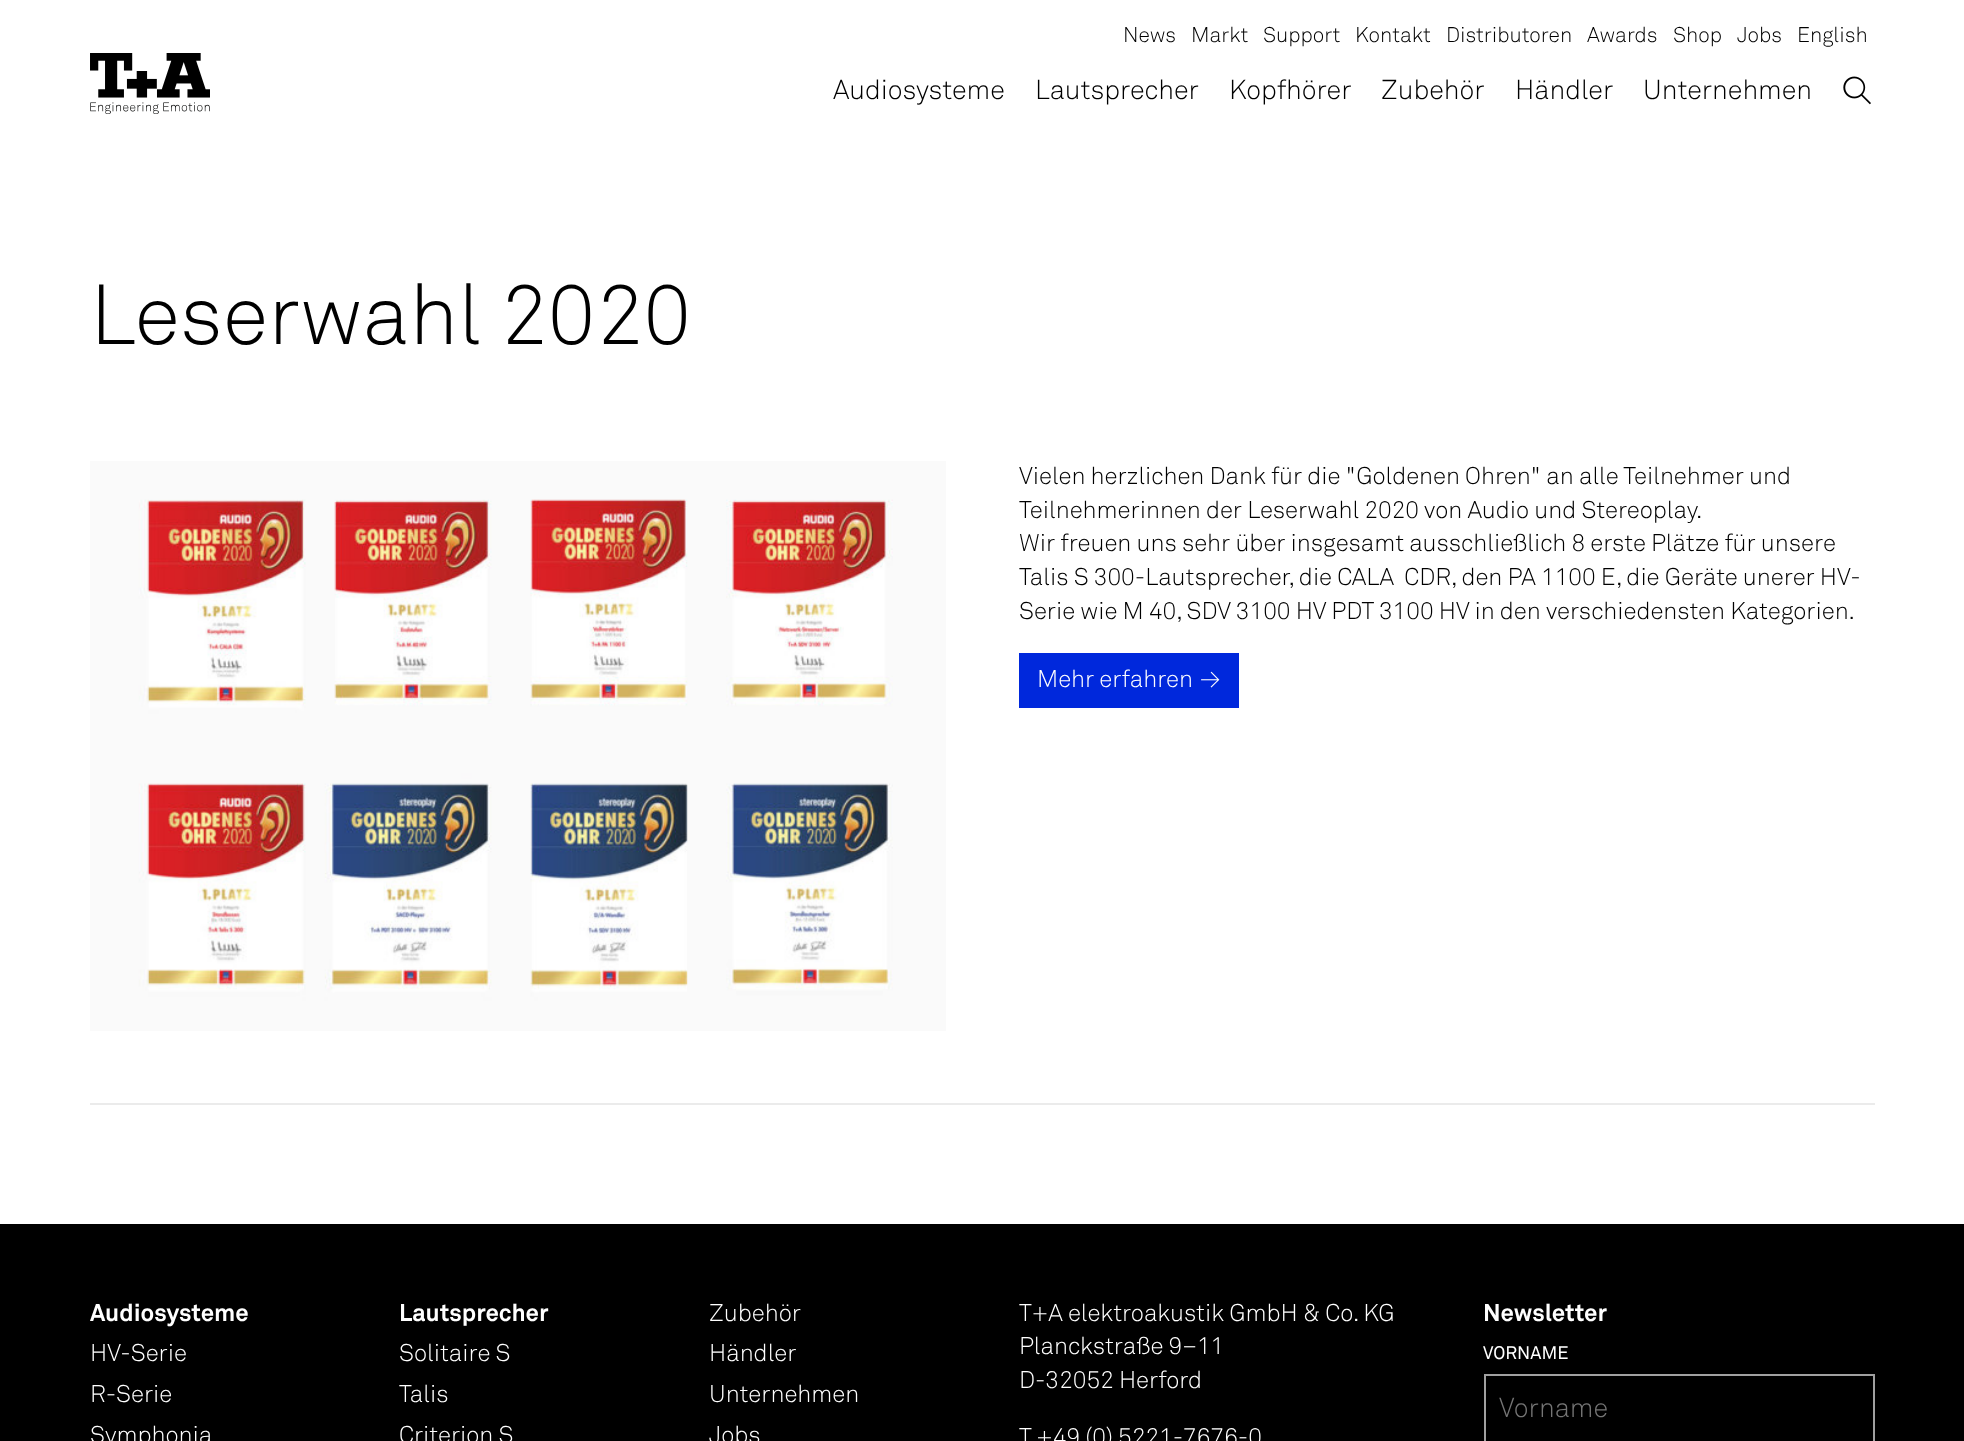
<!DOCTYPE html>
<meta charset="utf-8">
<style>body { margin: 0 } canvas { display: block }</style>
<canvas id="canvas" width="1964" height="1441"></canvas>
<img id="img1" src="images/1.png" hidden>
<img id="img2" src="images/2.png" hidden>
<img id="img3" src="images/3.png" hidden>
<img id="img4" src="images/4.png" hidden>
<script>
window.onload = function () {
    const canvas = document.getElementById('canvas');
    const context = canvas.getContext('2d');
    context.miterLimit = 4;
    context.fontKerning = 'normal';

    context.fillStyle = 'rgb(255, 255, 255)';
    context.fillRect(0, 0, 1964, 1441);
    context.drawImage(document.getElementById('img1'), 90, 53, 120, 45);
    context.drawImage(document.getElementById('img2'), 90, 102, 120, 12);
    context.drawImage(document.getElementById('img3'), 1843, 76, 28, 29);
    context.fillStyle = 'rgb(235, 235, 235)';
    context.fillRect(90, 1103, 1785, 2);
    context.drawImage(document.getElementById('img4'), 90, 461, 856, 570);
    context.fillStyle = 'rgb(0, 40, 220)';
    context.fillRect(1019, 653, 220, 55);
    context.fillStyle = 'rgb(0, 0, 0)';
    context.fillRect(0, 1224, 1964, 217);
    context.strokeStyle = 'rgb(160, 160, 160)';
    context.lineWidth = 2;
    context.strokeRect(1485, 1375, 389, 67);
    context.font = '300 21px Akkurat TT';
    context.fillText('News', 1123, 42);
    context.fillText('Markt', 1191, 42);
    context.fillText('Support', 1263, 42);
    context.fillText('Kontakt', 1355, 42);
    context.fillText('Distributoren', 1446, 42);
    context.fillText('Awards', 1587, 42);
    context.fillText('Shop', 1673, 42);
    context.fillText('Jobs', 1737, 42);
    context.fillText('English', 1797, 42);
    context.font = '300 27px Akkurat TT';
    context.fillText('Audiosysteme', 833, 99);
    context.fillText('Lautsprecher', 1035, 99);
    context.fillText('Kopfhörer', 1229, 99);
    context.fillText('Zubehör', 1381, 99);
    context.fillText('Händler', 1515, 99);
    context.fillText('Unternehmen', 1643, 99);
    context.font = '300 84px Akkurat TT';
    context.fillText('Leserwahl 2020', 90, 344);
    context.font = '300 24px Akkurat TT';
    context.fillText('Vielen herzlichen Dank für die "Goldenen Ohren" an alle Teilnehmer und', 1019, 484);
    context.fillText('Teilnehmerinnen der Leserwahl 2020 von Audio und Stereoplay.', 1019, 518);
    context.fillText('Wir freuen uns sehr über insgesamt ausschließlich 8 erste Plätze für unsere', 1019, 551);
    context.fillText('Talis S 300-Lautsprecher, die CALA  CDR, den PA 1100 E, die Geräte unerer HV-', 1019, 585);
    context.fillText('Serie wie M 40, SDV 3100 HV PDT 3100 HV in den verschiedensten Kategorien.', 1019, 619);
    context.fillStyle = 'rgb(255, 255, 255)';
    context.fillText('Mehr erfahren', 1037, 687);
    context.fillText('→', 1200, 687);
    context.font = 'bold 24px Akkurat TT';
    context.fillText('Audiosysteme', 90, 1321);
    context.font = '300 24px Akkurat TT';
    context.fillText('HV-Serie', 90, 1361);
    context.fillText('R-Serie', 90, 1402);
    context.fillText('Symphonia', 90, 1443);
    context.font = 'bold 24px Akkurat TT';
    context.fillText('Lautsprecher', 399, 1321);
    context.font = '300 24px Akkurat TT';
    context.fillText('Solitaire S', 399, 1361);
    context.fillText('Talis', 399, 1402);
    context.fillText('Criterion S', 399, 1443);
    context.fillText('Zubehör', 709, 1321);
    context.fillText('Händler', 709, 1361);
    context.fillText('Unternehmen', 709, 1402);
    context.fillText('Jobs', 709, 1443);
    context.fillText('T+A elektroakustik GmbH & Co. KG', 1019, 1321);
    context.fillText('Planckstraße 9–11', 1019, 1354);
    context.fillText('D-32052 Herford', 1019, 1388);
    context.fillText('T +49 (0) 5221-7676-0', 1019, 1445);
    context.font = 'bold 24px Akkurat TT';
    context.fillText('Newsletter', 1483, 1321);
    context.font = '18px Akkurat TT';
    context.fillText('VORNAME', 1483, 1359);
    context.font = '300 27px Akkurat TT';
    context.fillStyle = 'rgb(117, 117, 117)';
    context.fillText('Vorname', 1499, 1417);
};
</script>
